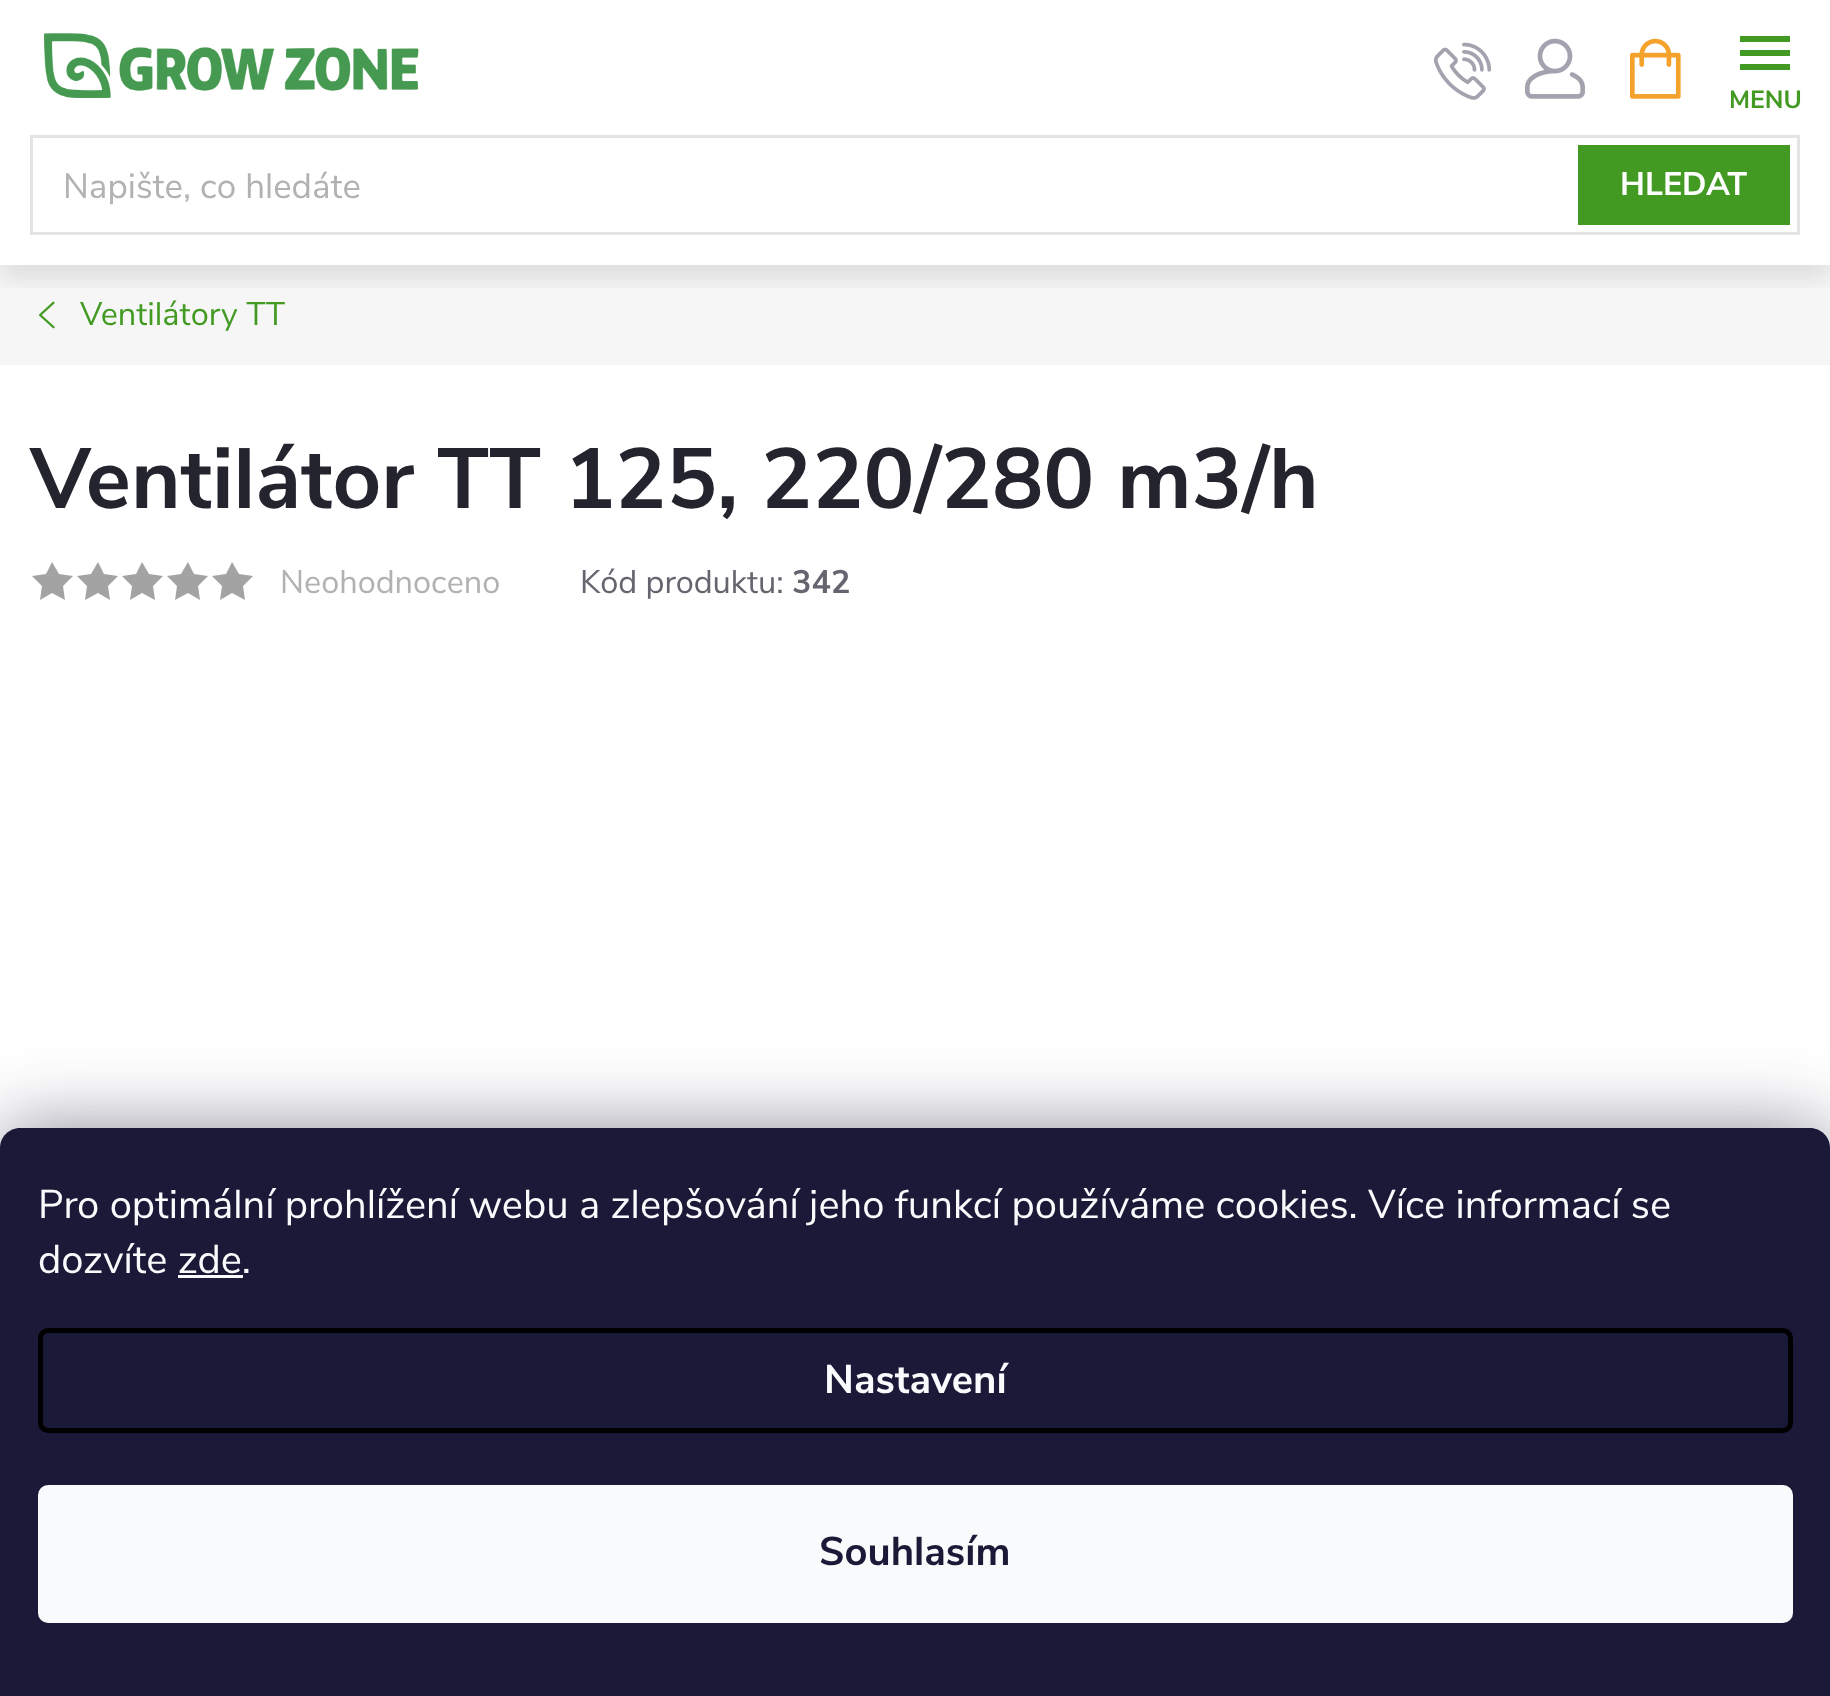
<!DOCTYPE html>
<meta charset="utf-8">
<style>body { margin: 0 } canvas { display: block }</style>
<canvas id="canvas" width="1830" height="1696"></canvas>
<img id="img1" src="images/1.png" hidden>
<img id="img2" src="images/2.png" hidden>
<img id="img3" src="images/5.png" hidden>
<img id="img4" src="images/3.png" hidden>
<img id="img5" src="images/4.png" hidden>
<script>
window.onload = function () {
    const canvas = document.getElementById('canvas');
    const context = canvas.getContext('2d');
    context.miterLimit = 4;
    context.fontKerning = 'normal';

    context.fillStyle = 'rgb(255, 255, 255)';
    context.fillRect(0, 0, 1830, 1696);
    context.drawImage(document.getElementById('img1'), 1433, 42, 59, 58);
    context.drawImage(document.getElementById('img2'), 1525, 38, 60, 61);
    context.fillStyle = 'rgb(67, 154, 35)';
    context.beginPath();
    context.moveTo(1740, 70);
    context.lineTo(1790, 70);
    context.lineTo(1790, 64);
    context.lineTo(1740, 64);
    context.closePath();
    context.moveTo(1740, 56);
    context.lineTo(1790, 56);
    context.lineTo(1790, 50);
    context.lineTo(1740, 50);
    context.closePath();
    context.moveTo(1740, 36);
    context.lineTo(1740, 42);
    context.lineTo(1790, 42);
    context.lineTo(1790, 36);
    context.closePath();
    context.fill();
    context.fillStyle = 'rgb(246, 246, 246)';
    context.fillRect(0, 265, 1830, 100);
    context.drawImage(document.getElementById('img3'), 39, 301, 16, 28);
    context.save();
    context.beginPath();
    context.rect(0, 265, 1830, 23);
    context.clip();
    context.fillStyle = 'rgba(36, 36, 46, 0.1)';
    context.filter = 'blur(10px)';
    context.beginPath();
    context.rect(0, 150, 1830, 130);
    context.fill();
    context.filter = 'none';
    context.restore();
    context.drawImage(document.getElementById('img4'), 44, 33, 375, 65);
    context.drawImage(document.getElementById('img5'), 1630, 38, 51, 61);
    context.strokeStyle = 'rgb(228, 228, 228)';
    context.lineWidth = 3;
    context.strokeRect(31.5, 136.5, 1767, 97);
    context.fillStyle = 'rgb(67, 154, 35)';
    context.fillRect(1578, 145, 212, 80);
    context.fillStyle = 'rgb(163, 163, 163)';
    context.beginPath();
    context.moveTo(52, 593);
    context.lineTo(40, 600);
    context.lineTo(42, 586);
    context.lineTo(32, 576);
    context.lineTo(46, 574);
    context.lineTo(52, 562);
    context.lineTo(59, 574);
    context.lineTo(73, 576);
    context.lineTo(63, 586);
    context.lineTo(65, 600);
    context.closePath();
    context.fill();
    context.beginPath();
    context.moveTo(98, 593);
    context.lineTo(85, 600);
    context.lineTo(87, 586);
    context.lineTo(77, 576);
    context.lineTo(91, 574);
    context.lineTo(98, 562);
    context.lineTo(104, 574);
    context.lineTo(118, 576);
    context.lineTo(108, 586);
    context.lineTo(110, 600);
    context.closePath();
    context.fill();
    context.beginPath();
    context.moveTo(142, 593);
    context.lineTo(130, 600);
    context.lineTo(132, 586);
    context.lineTo(122, 576);
    context.lineTo(136, 574);
    context.lineTo(142, 562);
    context.lineTo(149, 574);
    context.lineTo(163, 576);
    context.lineTo(153, 586);
    context.lineTo(155, 600);
    context.closePath();
    context.fill();
    context.beginPath();
    context.moveTo(188, 593);
    context.lineTo(175, 600);
    context.lineTo(177, 586);
    context.lineTo(167, 576);
    context.lineTo(181, 574);
    context.lineTo(188, 562);
    context.lineTo(194, 574);
    context.lineTo(208, 576);
    context.lineTo(198, 586);
    context.lineTo(200, 600);
    context.closePath();
    context.fill();
    context.beginPath();
    context.moveTo(232, 593);
    context.lineTo(220, 600);
    context.lineTo(222, 586);
    context.lineTo(212, 576);
    context.lineTo(226, 574);
    context.lineTo(232, 562);
    context.lineTo(239, 574);
    context.lineTo(253, 576);
    context.lineTo(243, 586);
    context.lineTo(245, 600);
    context.closePath();
    context.fill();
    context.fillStyle = 'rgba(27, 25, 57, 0.5)';
    context.filter = 'blur(37.5px)';
    context.beginPath();
    context.roundRect(0, 1128, 1830, 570, 20);
    context.fill();
    context.filter = 'none';
    context.fillStyle = 'rgb(26, 25, 55)';
    context.beginPath();
    context.moveTo(20, 1128);
    context.lineTo(1810, 1128);
    context.bezierCurveTo(1821, 1128, 1830, 1137, 1830, 1148);
    context.lineTo(1830, 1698);
    context.lineTo(0, 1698);
    context.lineTo(0, 1148);
    context.bezierCurveTo(0, 1137, 9, 1128, 20, 1128);
    context.closePath();
    context.fill();
    context.fillStyle = 'rgb(248, 250, 251)';
    context.fillRect(178, 1275, 65, 3);
    context.beginPath();
    context.roundRect(40.5, 1330.5, 1750, 100, 7.5);
    context.strokeStyle = 'rgb(0, 0, 0)';
    context.lineWidth = 5;
    context.stroke();
    context.beginPath();
    context.roundRect(38, 1485, 1755, 138, 10);
    context.fill();
    context.font = 'bold 25px Nunito Sans';
    context.fillStyle = 'rgb(67, 154, 35)';
    context.fillText('MENU', 1729, 108);
    context.font = '35px Nunito Sans';
    context.fillStyle = 'rgb(178, 178, 178)';
    context.fillText('Napište, co hledáte', 63, 198);
    context.font = 'bold 32.5px Nunito Sans';
    context.fillStyle = 'rgb(255, 255, 255)';
    context.fillText('HLEDAT', 1620, 195);
    context.font = '32.5px Nunito Sans';
    context.fillStyle = 'rgb(67, 154, 35)';
    context.fillText('Ventilátory TT', 80, 325);
    context.font = 'bold 85px Nunito Sans';
    context.fillStyle = 'rgb(36, 36, 46)';
    context.fillText('Ventilátor TT 125, 220/280 m3/h', 30, 508);
    context.font = '32.5px Nunito Sans';
    context.fillStyle = 'rgb(178, 178, 178)';
    context.fillText('Neohodnoceno', 280, 593);
    context.fillStyle = 'rgb(101, 101, 112)';
    context.fillText('Kód produktu:', 580, 593);
    context.font = 'bold 32.5px Nunito Sans';
    context.fillText('342', 792, 593);
    context.font = '40px Nunito Sans';
    context.fillStyle = 'rgb(248, 250, 251)';
    context.fillText('Pro optimální prohlížení webu a zlepšování jeho funkcí používáme cookies. Více informací se', 38, 1218);
    context.fillText('dozvíte zde.', 38, 1273);
    context.font = 'bold 40px Nunito Sans';
    context.fillText('Nastavení', 824, 1393);
    context.fillStyle = 'rgb(26, 25, 55)';
    context.fillText('Souhlasím', 819, 1565);
};
</script>
